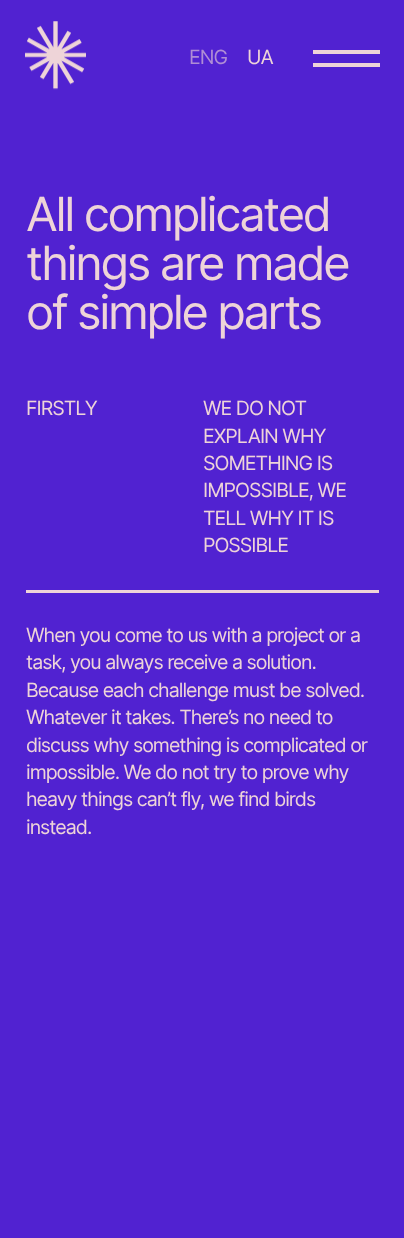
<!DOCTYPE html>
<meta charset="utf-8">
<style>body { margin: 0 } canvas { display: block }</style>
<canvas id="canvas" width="404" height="1238"></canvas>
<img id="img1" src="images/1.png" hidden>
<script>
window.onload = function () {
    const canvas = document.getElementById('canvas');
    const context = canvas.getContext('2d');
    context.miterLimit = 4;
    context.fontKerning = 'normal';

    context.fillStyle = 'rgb(81, 34, 209)';
    context.fillRect(0, 0, 404, 1238);
    context.drawImage(document.getElementById('img1'), 25, 21, 61, 69);
    context.fillStyle = 'rgb(238, 212, 216)';
    context.fillRect(313, 50, 67, 4);
    context.fillRect(313, 63, 67, 4);
    context.fillRect(26, 590, 353, 3);
    context.letterSpacing = '-1px';
    context.font = '19.6px Inter';
    context.fillStyle = 'rgb(175, 141, 213)';
    context.fillText('ENG', 189, 64);
    context.fillStyle = 'rgb(238, 212, 216)';
    context.fillText('UA', 247, 64);
    context.letterSpacing = '-2.4px';
    context.font = '47px Inter';
    context.fillText('All complicated', 26, 231);
    context.fillText('things are made', 26, 280);
    context.fillText('of simple parts', 26, 329);
    context.letterSpacing = '-1px';
    context.font = '19.6px Inter';
    context.fillText('FIRSTLY', 26, 415);
    context.fillText('WE DO NOT', 203, 415);
    context.fillText('EXPLAIN WHY', 203, 443);
    context.fillText('SOMETHING IS', 203, 470);
    context.fillText('IMPOSSIBLE, WE', 203, 497);
    context.fillText('TELL WHY IT IS', 203, 525);
    context.fillText('POSSIBLE', 203, 552);
    context.fillText('When you come to us with a project or a', 26, 642);
    context.fillText('task, you always receive a solution.', 26, 669);
    context.fillText('Because each challenge must be solved.', 26, 697);
    context.fillText('Whatever it takes. There’s no need to', 26, 724);
    context.fillText('discuss why something is complicated or', 26, 752);
    context.fillText('impossible. We do not try to prove why', 26, 779);
    context.fillText('heavy things can’t fly, we find birds', 26, 806);
    context.fillText('instead.', 26, 834);
};
</script>
